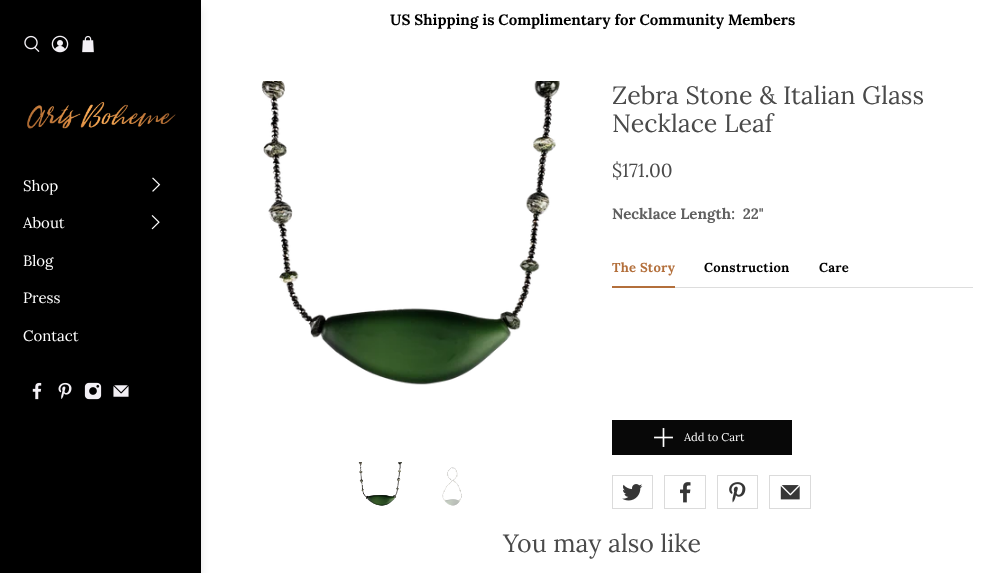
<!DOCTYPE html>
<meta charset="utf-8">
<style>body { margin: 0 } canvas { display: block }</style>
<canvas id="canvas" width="1003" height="573"></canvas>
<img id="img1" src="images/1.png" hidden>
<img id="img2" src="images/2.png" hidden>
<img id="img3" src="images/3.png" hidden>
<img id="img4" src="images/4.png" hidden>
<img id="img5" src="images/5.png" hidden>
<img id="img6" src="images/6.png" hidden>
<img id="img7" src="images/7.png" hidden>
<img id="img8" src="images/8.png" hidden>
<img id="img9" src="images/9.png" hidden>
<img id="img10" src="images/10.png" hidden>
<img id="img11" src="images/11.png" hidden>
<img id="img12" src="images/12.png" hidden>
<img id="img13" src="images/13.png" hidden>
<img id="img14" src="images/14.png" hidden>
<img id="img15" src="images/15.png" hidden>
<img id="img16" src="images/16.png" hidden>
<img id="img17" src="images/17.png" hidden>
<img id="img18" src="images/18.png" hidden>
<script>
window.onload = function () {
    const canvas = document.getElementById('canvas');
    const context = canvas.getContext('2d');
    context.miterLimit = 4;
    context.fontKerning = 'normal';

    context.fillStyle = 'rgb(255, 255, 255)';
    context.fillRect(0, 0, 1003, 573);
    context.fillStyle = 'rgba(10, 10, 10, 0.1)';
    context.filter = 'blur(4px)';
    context.beginPath();
    context.rect(-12, 8, 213, 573);
    context.fill();
    context.filter = 'none';
    context.fillStyle = 'rgb(0, 0, 0)';
    context.fillRect(0, 0, 201, 573);
    context.drawImage(document.getElementById('img1'), 24, 35, 16, 17);
    context.drawImage(document.getElementById('img2'), 51, 35, 18, 18);
    context.drawImage(document.getElementById('img3'), 82, 35, 12, 18);
    context.drawImage(document.getElementById('img4'), 27, 102, 149, 27);
    context.drawImage(document.getElementById('img5'), 152, 177, 9, 15);
    context.drawImage(document.getElementById('img6'), 151, 215, 9, 15);
    context.drawImage(document.getElementById('img7'), 32, 382, 10, 18);
    context.drawImage(document.getElementById('img8'), 58, 382, 14, 17);
    context.drawImage(document.getElementById('img9'), 84, 382, 18, 18);
    context.drawImage(document.getElementById('img10'), 113, 385, 16, 12);
    context.drawImage(document.getElementById('img11'), 261, 81, 299, 304);
    context.drawImage(document.getElementById('img12'), 358, 462, 44, 44);
    context.drawImage(document.getElementById('img13'), 442, 467, 20, 39);
    context.fillStyle = 'rgb(221, 221, 221)';
    context.fillRect(675, 287, 298, 1);
    context.fillStyle = 'rgb(179, 111, 59)';
    context.fillRect(612, 286, 63, 2);
    context.fillStyle = 'rgb(8, 8, 8)';
    context.fillRect(612, 420, 180, 35);
    context.drawImage(document.getElementById('img14'), 654, 428, 19, 19);
    context.strokeStyle = 'rgb(219, 219, 219)';
    context.strokeRect(612.5, 475.5, 40, 33);
    context.drawImage(document.getElementById('img15'), 622, 484, 21, 17);
    context.strokeRect(664.5, 475.5, 41, 33);
    context.drawImage(document.getElementById('img16'), 680, 482, 11, 21);
    context.strokeRect(717.5, 475.5, 40, 33);
    context.drawImage(document.getElementById('img17'), 729, 482, 17, 21);
    context.strokeRect(769.5, 475.5, 41, 33);
    context.drawImage(document.getElementById('img18'), 780, 485, 20, 15);
    context.font = 'bold 15px Lora';
    context.fillStyle = 'rgb(0, 0, 0)';
    context.fillText('US Shipping is Complimentary for Community Members', 390, 25);
    context.font = '15px Lora';
    context.fillStyle = 'rgb(255, 255, 255)';
    context.fillText('Shop', 23, 191);
    context.fillText('About', 23, 228);
    context.fillText('Blog', 23, 266);
    context.fillText('Press', 23, 303);
    context.fillText('Contact', 23, 341);
    context.font = '25px Lora';
    context.fillStyle = 'rgb(74, 74, 74)';
    context.fillText('Zebra Stone & Italian Glass', 612, 104);
    context.fillText('Necklace Leaf', 612, 132);
    context.font = '19px Lora';
    context.fillText('$171.00', 612, 177);
    context.font = 'bold 15px Lora';
    context.fillStyle = 'rgb(96, 96, 96)';
    context.fillText('Necklace Length:  22"', 612, 219);
    context.letterSpacing = '0.25px';
    context.font = 'bold 13px Lora';
    context.fillStyle = 'rgb(179, 111, 59)';
    context.fillText('The Story', 612, 272);
    context.fillStyle = 'rgb(0, 0, 0)';
    context.fillText('Construction', 704, 272);
    context.fillText('Care', 819, 272);
    context.letterSpacing = '0px';
    context.font = '11.25px Lora';
    context.fillStyle = 'rgb(255, 255, 255)';
    context.fillText('Add to Cart', 684, 441);
    context.font = '25px Lora';
    context.fillStyle = 'rgb(74, 74, 74)';
    context.fillText('You may also like', 503, 552);
};
</script>
